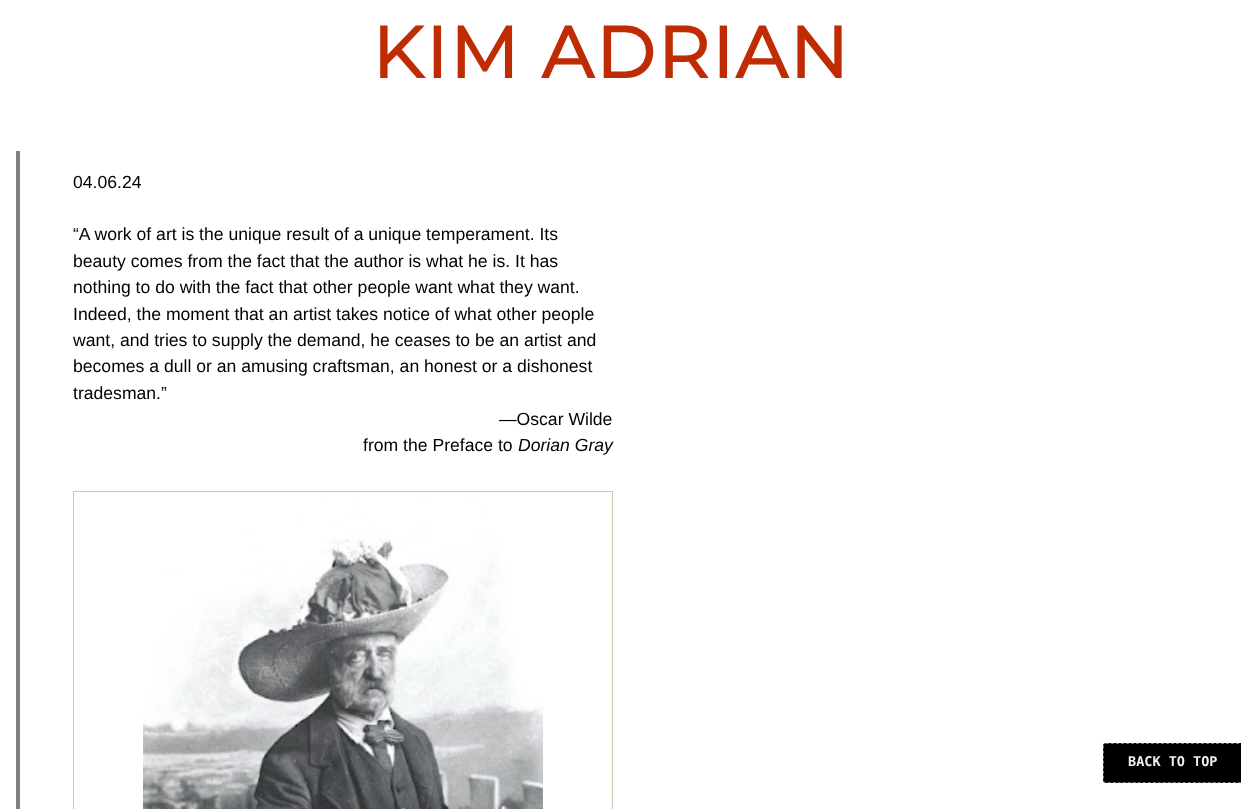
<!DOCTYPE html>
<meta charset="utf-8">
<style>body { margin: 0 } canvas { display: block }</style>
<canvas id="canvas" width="1241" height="809"></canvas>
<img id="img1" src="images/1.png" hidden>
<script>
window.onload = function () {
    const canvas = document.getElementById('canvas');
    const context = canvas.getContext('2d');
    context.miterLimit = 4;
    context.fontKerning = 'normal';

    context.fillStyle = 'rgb(255, 255, 255)';
    context.fillRect(0, 0, 1241, 809);
    context.fillStyle = 'rgb(128, 128, 128)';
    context.fillRect(16, 151, 4, 658);
    context.strokeStyle = 'rgb(191, 207, 175)';
    context.strokeRect(73.5, 491.5, 539, 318);
    context.drawImage(document.getElementById('img1'), 143, 492, 400, 317);
    context.fillStyle = 'rgb(0, 0, 0)';
    context.beginPath();
    context.roundRect(1103, 743, 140, 40, 3);
    context.fill();
    context.beginPath();
    context.moveTo(1106, 743.5);
    context.lineTo(1240, 743.5);
    context.bezierCurveTo(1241.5, 743.5, 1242.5, 744.5, 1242.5, 746);
    context.lineTo(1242.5, 780);
    context.bezierCurveTo(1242.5, 781.5, 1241.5, 782.5, 1240, 782.5);
    context.lineTo(1106, 782.5);
    context.bezierCurveTo(1104.5, 782.5, 1103.5, 781.5, 1103.5, 780);
    context.lineTo(1103.5, 746);
    context.bezierCurveTo(1103.5, 744.5, 1104.5, 743.5, 1106, 743.5);
    context.closePath();
    context.strokeStyle = 'rgb(119, 119, 119)';
    context.setLineDash([3, 2]);
    context.stroke();
    context.letterSpacing = '2.25px';
    context.font = 'bold 72px Montserrat';
    context.fillStyle = 'rgb(191, 43, 2)';
    context.fillText('KIM ADRIAN', 372, 78);
    context.letterSpacing = '0px';
    context.font = '17.6px Liberation Sans';
    context.fillStyle = 'rgb(0, 0, 0)';
    context.fillText('04.06.24', 73, 188);
    context.fillText('“A work of art is the unique result of a unique temperament. Its', 73, 240);
    context.fillText('beauty comes from the fact that the author is what he is. It has', 73, 267);
    context.fillText('nothing to do with the fact that other people want what they want.', 73, 293);
    context.fillText('Indeed, the moment that an artist takes notice of what other people', 73, 320);
    context.fillText('want, and tries to supply the demand, he ceases to be an artist and', 73, 346);
    context.fillText('becomes a dull or an amusing craftsman, an honest or a dishonest', 73, 372);
    context.fillText('tradesman.”', 73, 399);
    context.fillText('—Oscar Wilde', 499, 425);
    context.fillText('from the Preface to', 363, 451);
    context.font = 'italic 17.6px Liberation Sans';
    context.fillText('Dorian Gray', 518, 451);
    context.font = 'bold 13.5px DejaVu Sans Mono';
    context.fillStyle = 'rgb(242, 242, 242)';
    context.fillText('BACK TO TOP', 1128, 766);
};
</script>
